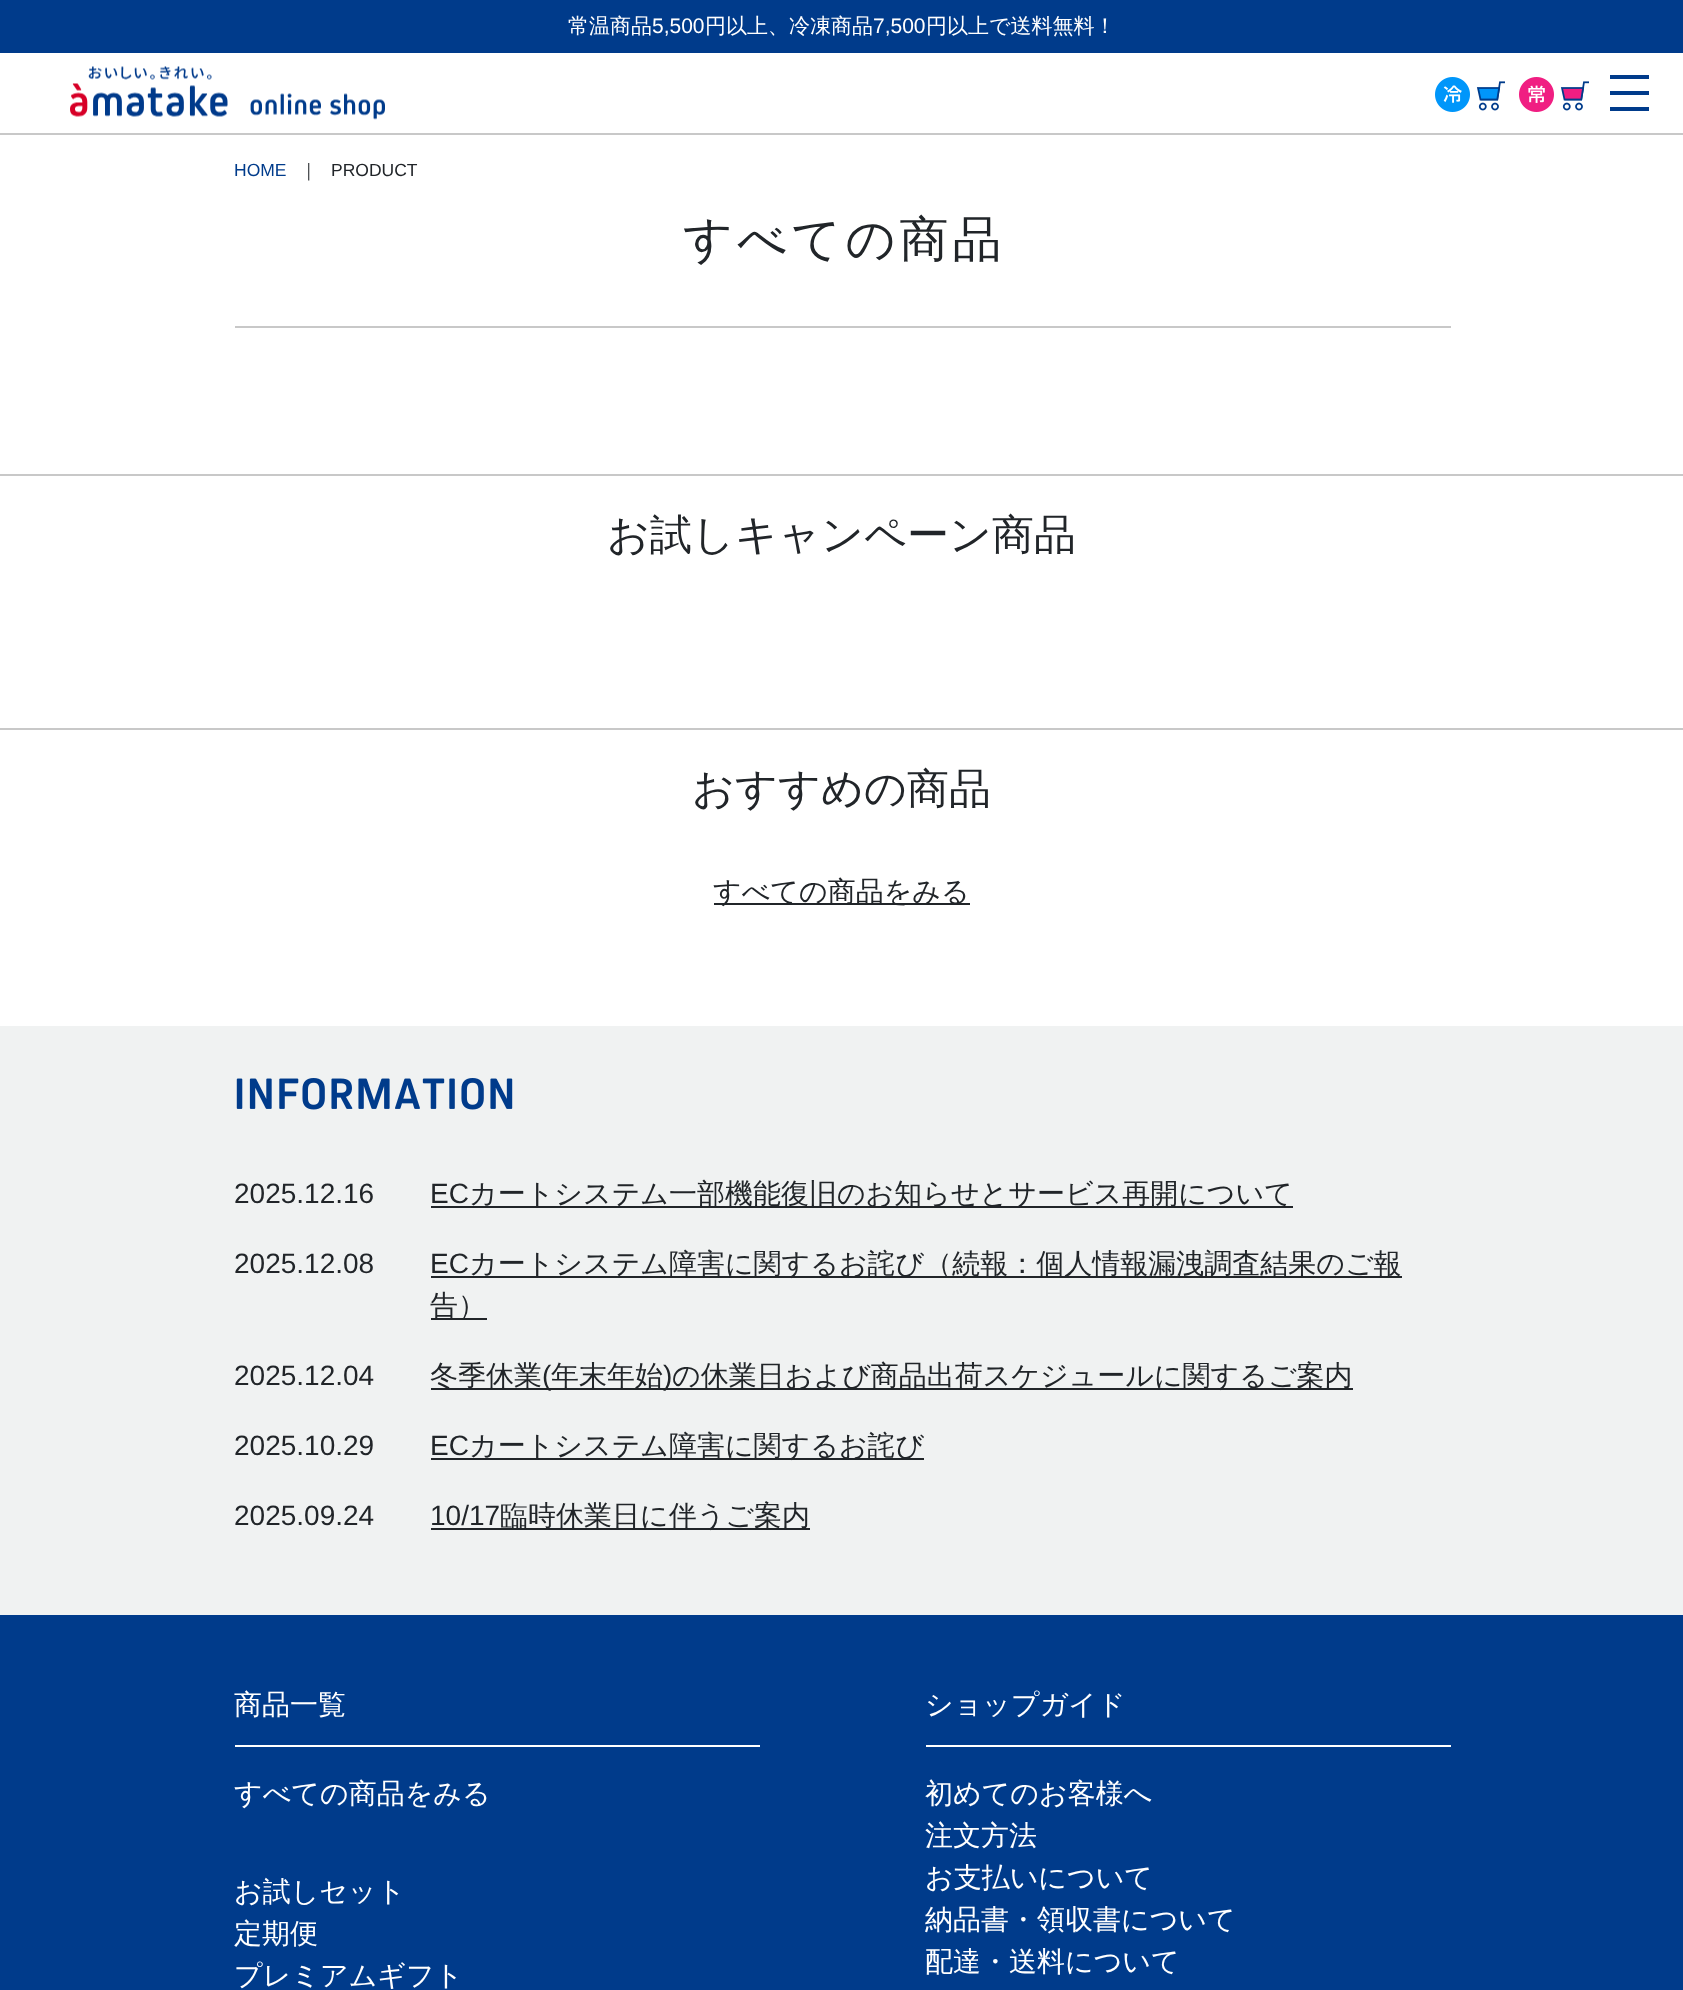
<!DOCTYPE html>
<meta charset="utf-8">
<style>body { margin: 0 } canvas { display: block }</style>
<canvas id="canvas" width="1683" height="1990"></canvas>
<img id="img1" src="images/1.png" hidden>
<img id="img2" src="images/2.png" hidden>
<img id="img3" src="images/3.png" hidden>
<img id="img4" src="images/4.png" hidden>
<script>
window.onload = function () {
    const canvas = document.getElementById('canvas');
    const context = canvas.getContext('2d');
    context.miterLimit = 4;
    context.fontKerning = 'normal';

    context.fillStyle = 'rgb(255, 255, 255)';
    context.fillRect(0, 0, 1683, 1990);
    context.fillStyle = 'rgb(200, 200, 200)';
    context.fillRect(0, 133, 1683, 2);
    context.fillStyle = 'rgb(0, 59, 139)';
    context.fillRect(0, 0, 1683, 53);
    context.drawImage(document.getElementById('img1'), 70, 66, 315, 54);
    context.drawImage(document.getElementById('img2'), 1435, 77, 70, 35);
    context.drawImage(document.getElementById('img3'), 1519, 77, 70, 35);
    context.fillRect(1610, 75, 39, 4);
    context.fillRect(1610, 91, 39, 4);
    context.fillRect(1610, 107, 39, 4);
    context.fillStyle = 'rgb(200, 200, 200)';
    context.fillRect(235, 326, 1216, 2);
    context.fillRect(0, 474, 1683, 2);
    context.fillRect(0, 728, 1683, 2);
    context.fillStyle = 'rgb(33, 37, 41)';
    context.fillRect(714, 903, 256, 2);
    context.fillStyle = 'rgb(240, 242, 242)';
    context.fillRect(0, 1026, 1683, 589);
    context.drawImage(document.getElementById('img4'), 236, 1078, 277, 32);
    context.fillStyle = 'rgb(33, 37, 41)';
    context.fillRect(431, 1206, 862, 2);
    context.fillRect(431, 1276, 971, 2);
    context.fillRect(431, 1318, 56, 2);
    context.fillRect(431, 1388, 922, 2);
    context.fillRect(431, 1458, 493, 2);
    context.fillRect(431, 1528, 379, 2);
    context.fillStyle = 'rgb(0, 59, 139)';
    context.fillRect(0, 1615, 1683, 375);
    context.fillStyle = 'rgb(255, 255, 255)';
    context.fillRect(235, 1745, 525, 2);
    context.fillRect(926, 1745, 525, 2);
    context.font = '500 21px WenQuanYi Zen Hei';
    context.fillText('常温商品', 568, 33);
    context.font = '21px Liberation Sans';
    context.fillText('5,500', 652, 33);
    context.font = '500 21px WenQuanYi Zen Hei';
    context.fillText('円以上、冷凍商品', 705, 33);
    context.font = '21px Liberation Sans';
    context.fillText('7,500', 873, 33);
    context.font = '500 21px WenQuanYi Zen Hei';
    context.fillText('円以上で送料無料！', 926, 33);
    context.font = '17.5px Liberation Sans';
    context.fillStyle = 'rgb(0, 59, 139)';
    context.fillText('HOME', 234, 176);
    context.font = '500 17.5px WenQuanYi Zen Hei';
    context.fillStyle = 'rgb(33, 37, 41)';
    context.fillText('｜', 300, 176);
    context.font = '17.5px Liberation Sans';
    context.fillText('PRODUCT', 331, 176);
    context.letterSpacing = '4px';
    context.font = '500 49px WenQuanYi Zen Hei';
    context.fillText('すべての商品', 683, 256);
    context.letterSpacing = '0px';
    context.font = '500 42px WenQuanYi Zen Hei';
    context.fillText('お試しキャンペーン商品', 607, 549);
    context.fillText('おすすめの商品', 692, 803);
    context.font = '500 28px WenQuanYi Zen Hei';
    context.fillText('すべての商品をみる', 713, 901);
    context.font = '28px Liberation Sans';
    context.fillText('2025.12.16', 234, 1203);
    context.fillText('EC', 430, 1203);
    context.font = '500 28px WenQuanYi Zen Hei';
    context.fillText('カートシステム一部機能復旧のお知らせとサービス再開について', 469, 1203);
    context.font = '28px Liberation Sans';
    context.fillText('2025.12.08', 234, 1273);
    context.fillText('EC', 430, 1273);
    context.font = '500 28px WenQuanYi Zen Hei';
    context.fillText('カートシステム障害に関するお詫び（続報：個人情報漏洩調査結果のご報', 469, 1273);
    context.fillText('告）', 430, 1315);
    context.font = '28px Liberation Sans';
    context.fillText('2025.12.04', 234, 1385);
    context.font = '500 28px WenQuanYi Zen Hei';
    context.fillText('冬季休業', 430, 1385);
    context.font = '28px Liberation Sans';
    context.fillText('(', 542, 1385);
    context.font = '500 28px WenQuanYi Zen Hei';
    context.fillText('年末年始', 551, 1385);
    context.font = '28px Liberation Sans';
    context.fillText(')', 663, 1385);
    context.font = '500 28px WenQuanYi Zen Hei';
    context.fillText('の休業日および商品出荷スケジュールに関するご案内', 672, 1385);
    context.font = '28px Liberation Sans';
    context.fillText('2025.10.29', 234, 1455);
    context.fillText('EC', 430, 1455);
    context.font = '500 28px WenQuanYi Zen Hei';
    context.fillText('カートシステム障害に関するお詫び', 469, 1455);
    context.font = '28px Liberation Sans';
    context.fillText('2025.09.24', 234, 1525);
    context.fillText('10/17', 430, 1525);
    context.font = '500 28px WenQuanYi Zen Hei';
    context.fillText('臨時休業日に伴うご案内', 500, 1525);
    context.fillStyle = 'rgb(255, 255, 255)';
    context.fillText('商品一覧', 234, 1714);
    context.fillText('すべての商品をみる', 234, 1803);
    context.fillText('お試しセット', 234, 1901);
    context.fillText('定期便', 234, 1943);
    context.fillText('プレミアムギフト', 234, 1985);
    context.fillText('ショップガイド', 925, 1714);
    context.fillText('初めてのお客様へ', 925, 1803);
    context.fillText('注文方法', 925, 1845);
    context.fillText('お支払いについて', 925, 1887);
    context.fillText('納品書・領収書について', 925, 1929);
    context.fillText('配達・送料について', 925, 1971);
};
</script>
